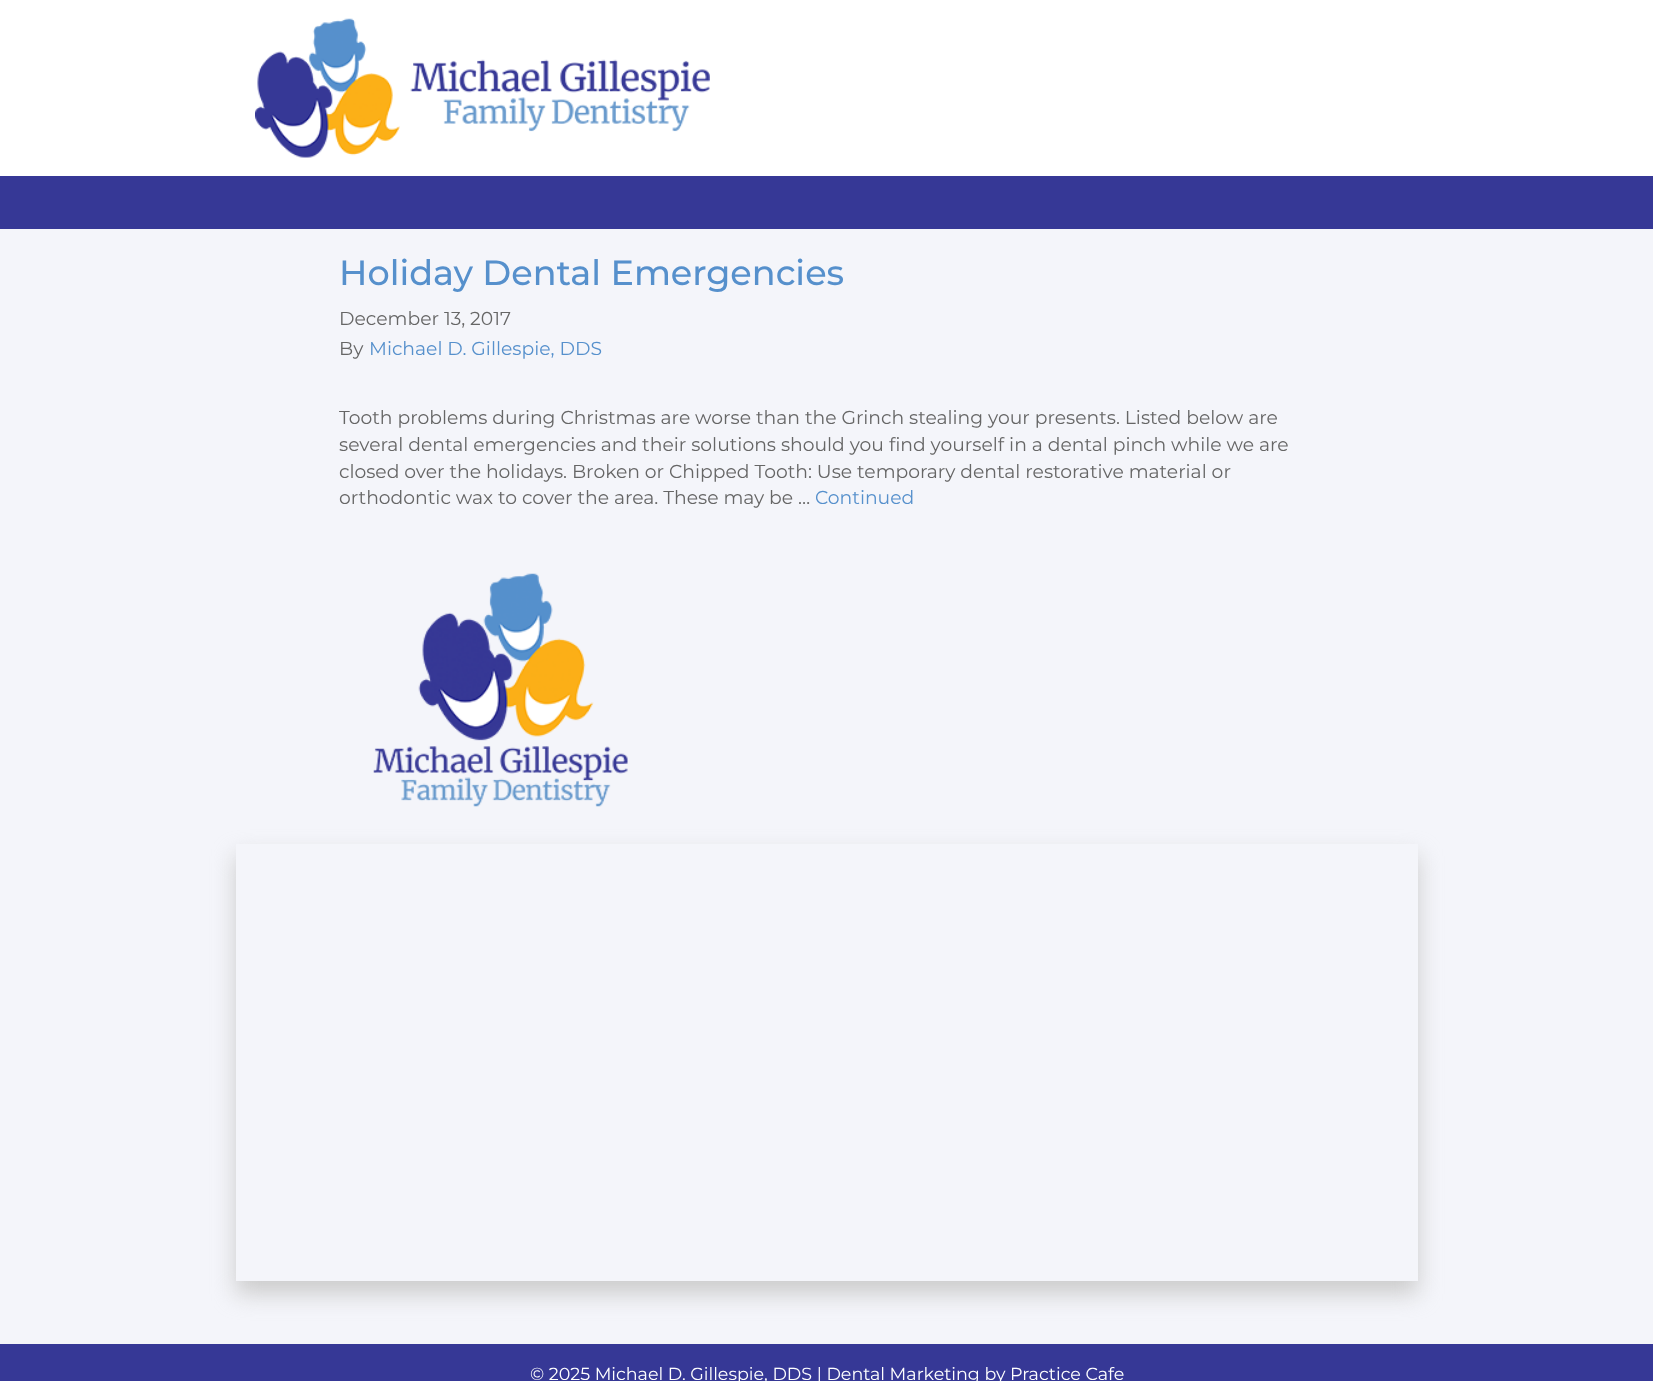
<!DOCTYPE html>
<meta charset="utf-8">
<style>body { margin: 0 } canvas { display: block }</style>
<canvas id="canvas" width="1653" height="1381"></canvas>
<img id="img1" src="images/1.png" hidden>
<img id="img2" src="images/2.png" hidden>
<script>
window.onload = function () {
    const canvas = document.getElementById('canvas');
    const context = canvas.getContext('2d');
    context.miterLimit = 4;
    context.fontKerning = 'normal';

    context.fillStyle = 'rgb(244, 245, 250)';
    context.fillRect(0, 0, 1653, 1381);
    context.fillStyle = 'rgb(255, 255, 255)';
    context.fillRect(0, 0, 1653, 176);
    context.drawImage(document.getElementById('img1'), 255, 18, 455, 140);
    context.fillStyle = 'rgb(54, 56, 150)';
    context.fillRect(0, 176, 1653, 53);
    context.drawImage(document.getElementById('img2'), 373, 573, 255, 234);
    context.save();
    context.beginPath();
    context.moveTo(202, 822);
    context.lineTo(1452, 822);
    context.lineTo(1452, 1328);
    context.lineTo(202, 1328);
    context.closePath();
    context.moveTo(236, 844);
    context.lineTo(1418, 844);
    context.lineTo(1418, 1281);
    context.lineTo(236, 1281);
    context.closePath();
    context.clip('evenodd');
    context.fillStyle = 'rgb(204, 204, 204)';
    context.filter = 'blur(11px)';
    context.beginPath();
    context.rect(236, 856, 1182, 438);
    context.fill();
    context.filter = 'none';
    context.restore();
    context.fillRect(0, 1344, 1653, 37);
    context.font = '500 35px Montserrat';
    context.fillStyle = 'rgb(86, 144, 204)';
    context.fillText('Holiday Dental Emergencies', 339, 285);
    context.font = '18.75px Montserrat';
    context.fillStyle = 'rgb(102, 102, 102)';
    context.fillText('December 13, 2017', 339, 325);
    context.fillText('By', 339, 355);
    context.fillStyle = 'rgb(86, 144, 204)';
    context.fillText('Michael D. Gillespie, DDS', 369, 355);
    context.fillStyle = 'rgb(102, 102, 102)';
    context.fillText('Tooth problems during Christmas are worse than the Grinch stealing your presents. Listed below are', 339, 424);
    context.fillText('several dental emergencies and their solutions should you find yourself in a dental pinch while we are', 339, 451);
    context.fillText('closed over the holidays. Broken or Chipped Tooth: Use temporary dental restorative material or', 339, 478);
    context.fillText('orthodontic wax to cover the area. These may be …', 339, 504);
    context.fillStyle = 'rgb(86, 144, 204)';
    context.fillText('Continued', 815, 504);
    context.font = '17.5px Montserrat';
    context.fillStyle = 'rgb(255, 255, 255)';
    context.fillText('© 2025 Michael D. Gillespie, DDS | Dental Marketing by Practice Cafe', 530, 1380);
};
</script>
